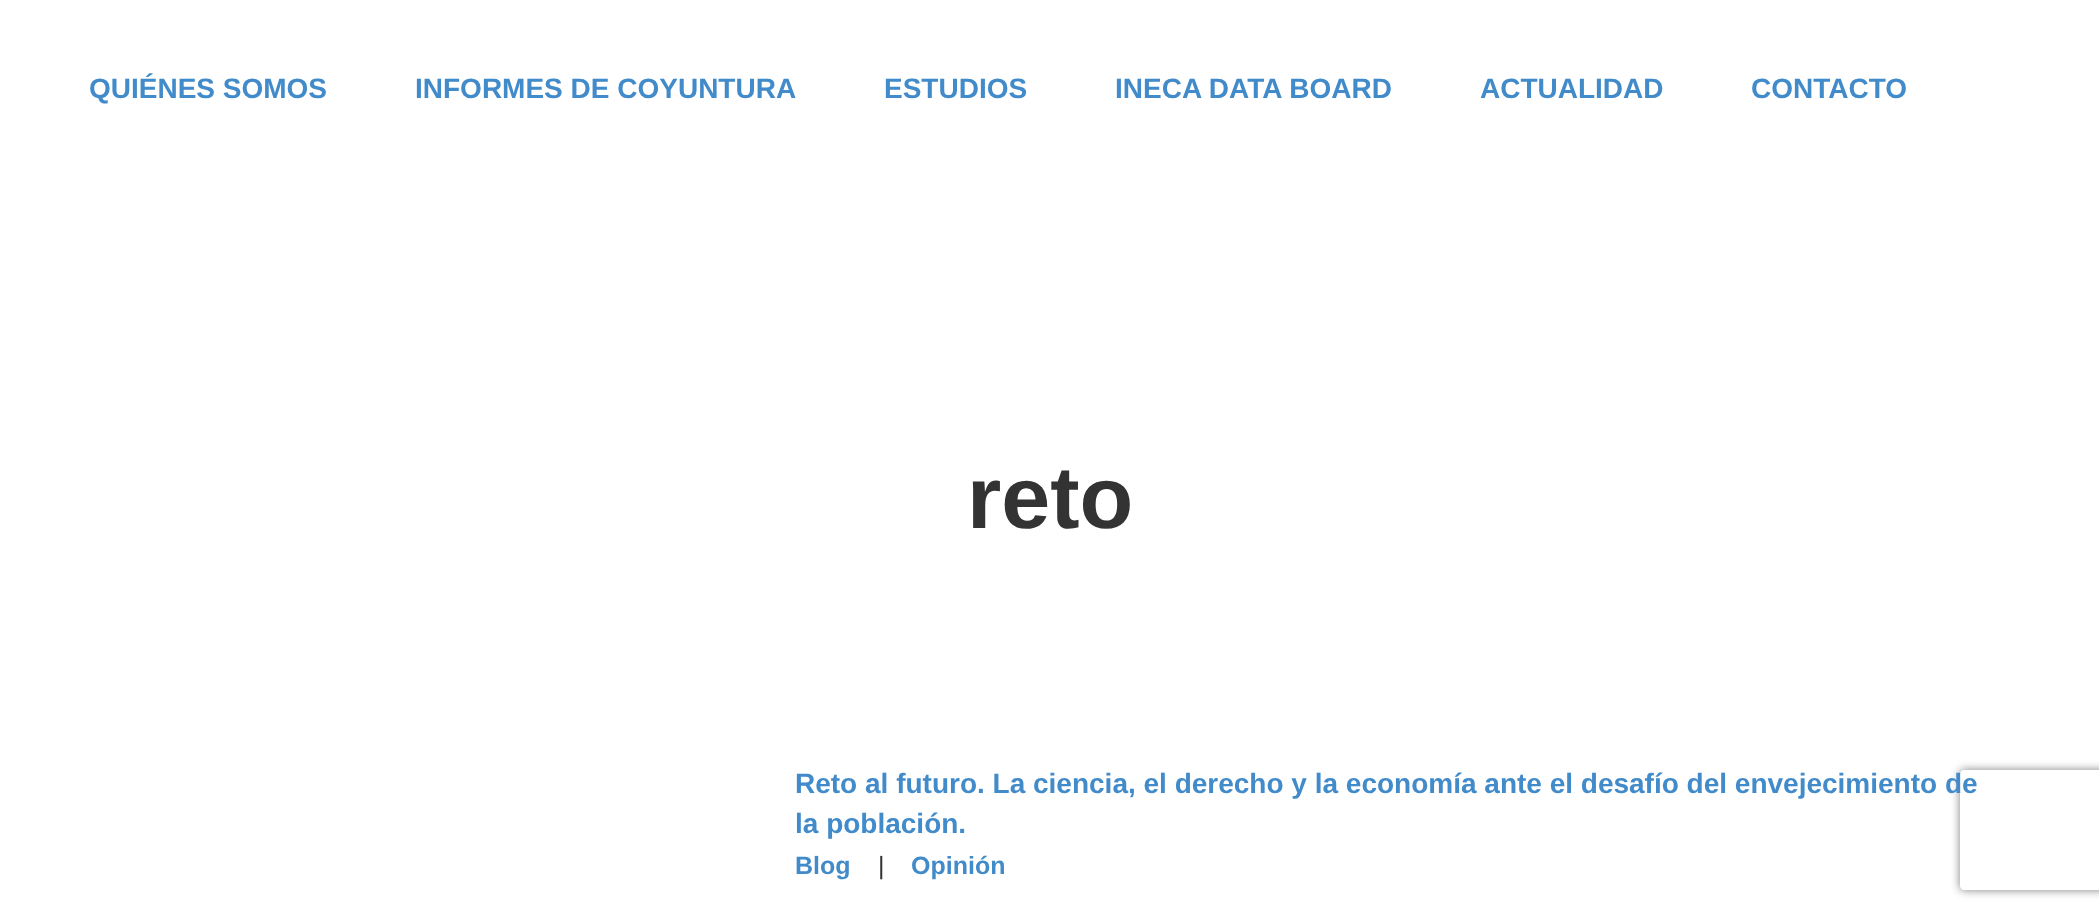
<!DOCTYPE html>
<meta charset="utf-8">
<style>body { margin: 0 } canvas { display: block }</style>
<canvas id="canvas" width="2099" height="917"></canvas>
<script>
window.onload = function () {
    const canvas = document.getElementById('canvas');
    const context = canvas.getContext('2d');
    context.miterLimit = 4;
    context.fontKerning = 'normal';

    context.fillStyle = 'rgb(255, 255, 255)';
    context.fillRect(0, 0, 2099, 917);
    context.save();
    context.beginPath();
    context.moveTo(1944, 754);
    context.lineTo(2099, 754);
    context.lineTo(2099, 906);
    context.lineTo(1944, 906);
    context.closePath();
    context.moveTo(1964, 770);
    context.lineTo(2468, 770);
    context.bezierCurveTo(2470, 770, 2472, 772, 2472, 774);
    context.lineTo(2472, 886);
    context.bezierCurveTo(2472, 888, 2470, 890, 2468, 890);
    context.lineTo(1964, 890);
    context.bezierCurveTo(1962, 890, 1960, 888, 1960, 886);
    context.lineTo(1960, 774);
    context.bezierCurveTo(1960, 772, 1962, 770, 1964, 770);
    context.closePath();
    context.clip('evenodd');
    context.fillStyle = 'rgb(128, 128, 128)';
    context.filter = 'blur(5px)';
    context.beginPath();
    context.roundRect(1960, 770, 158, 120, 4);
    context.fill();
    context.filter = 'none';
    context.restore();
    context.font = 'bold 28px Liberation Sans';
    context.fillStyle = 'rgb(66, 139, 202)';
    context.fillText('QUIÉNES SOMOS', 89, 98);
    context.fillText('INFORMES DE COYUNTURA', 415, 98);
    context.fillText('ESTUDIOS', 884, 98);
    context.fillText('INECA DATA BOARD', 1115, 98);
    context.fillText('ACTUALIDAD', 1480, 98);
    context.fillText('CONTACTO', 1751, 98);
    context.font = 'bold 88px Liberation Sans';
    context.fillStyle = 'rgb(51, 51, 51)';
    context.fillText('reto', 967, 528);
    context.font = 'bold 28px Liberation Sans';
    context.fillStyle = 'rgb(66, 139, 202)';
    context.fillText('Reto al futuro. La ciencia, el derecho y la economía ante el desafío del envejecimiento de', 795, 793);
    context.fillText('la población.', 795, 833);
    context.font = 'bold 25px Liberation Sans';
    context.fillText('Blog', 795, 874);
    context.font = '25px Liberation Sans';
    context.fillStyle = 'rgb(51, 51, 51)';
    context.fillText('|', 878, 874);
    context.font = 'bold 25px Liberation Sans';
    context.fillStyle = 'rgb(66, 139, 202)';
    context.fillText('Opinión', 911, 874);
};
</script>
